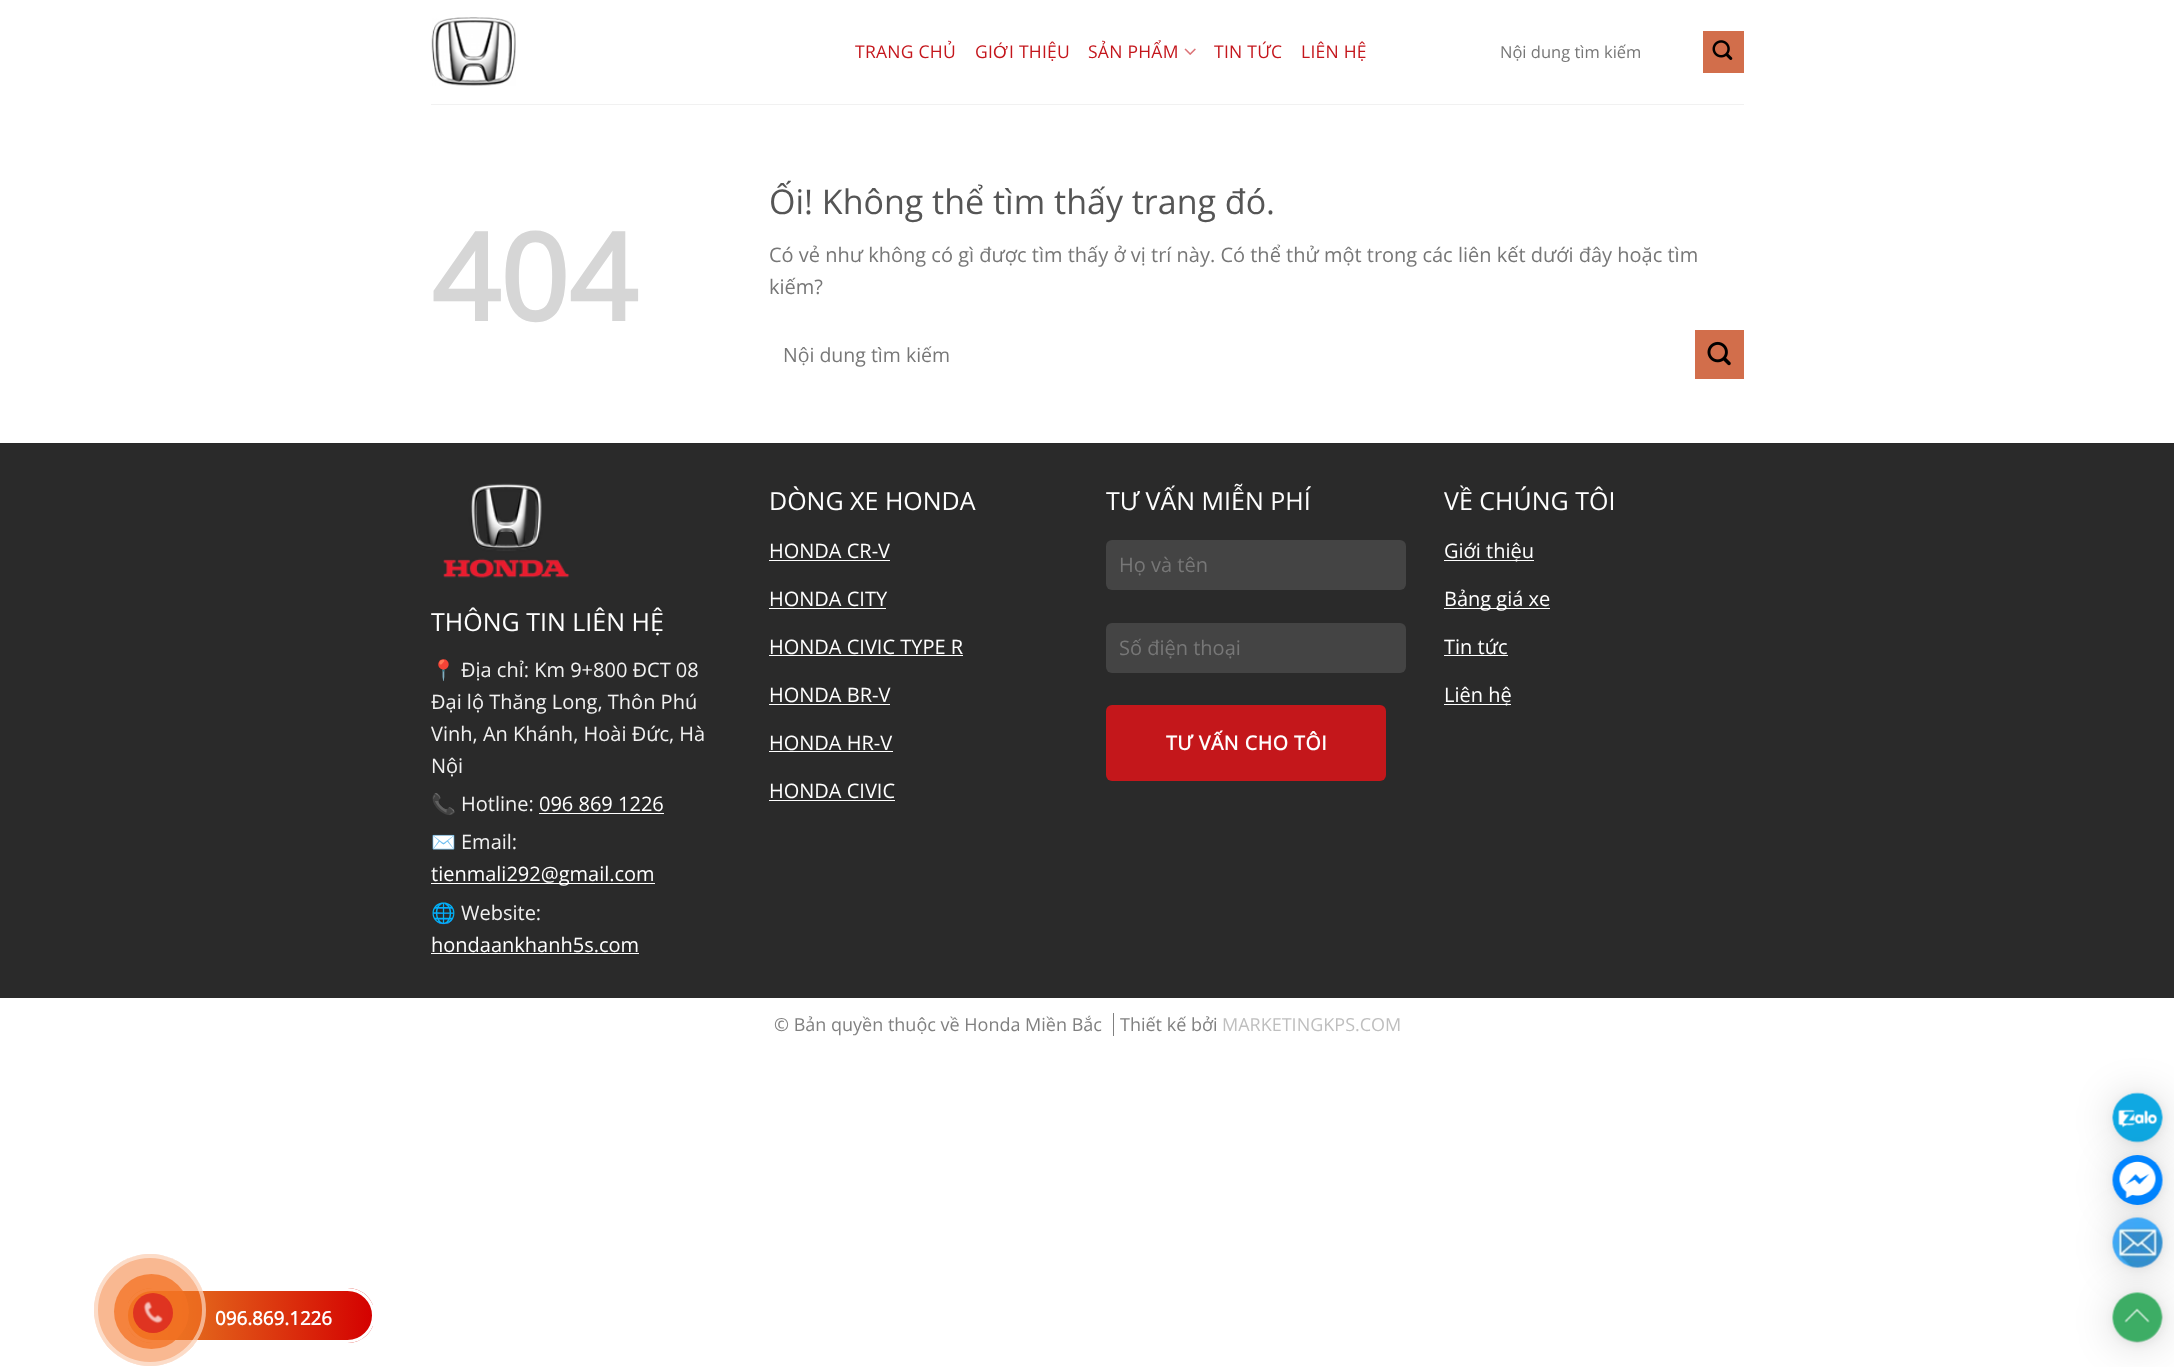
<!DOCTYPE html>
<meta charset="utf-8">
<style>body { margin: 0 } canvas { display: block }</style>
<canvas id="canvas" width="2174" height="1367"></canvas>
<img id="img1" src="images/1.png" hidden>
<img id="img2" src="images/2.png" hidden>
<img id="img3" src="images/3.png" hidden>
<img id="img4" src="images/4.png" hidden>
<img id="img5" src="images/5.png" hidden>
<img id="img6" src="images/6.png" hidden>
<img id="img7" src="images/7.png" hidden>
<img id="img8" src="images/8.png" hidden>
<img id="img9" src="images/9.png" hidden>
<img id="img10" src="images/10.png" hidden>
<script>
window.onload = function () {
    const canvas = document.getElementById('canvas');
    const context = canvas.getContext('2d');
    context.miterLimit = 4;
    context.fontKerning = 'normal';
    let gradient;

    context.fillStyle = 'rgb(255, 255, 255)';
    context.fillRect(0, 0, 2174, 1367);
    context.drawImage(document.getElementById('img1'), 431, 17, 85, 69);
    context.drawImage(document.getElementById('img2'), 1184, 48, 12, 7);
    context.fillStyle = 'rgb(210, 110, 75)';
    context.fillRect(1703, 31, 41, 42);
    context.drawImage(document.getElementById('img3'), 1712, 40, 21, 20);
    context.fillStyle = 'rgb(241, 241, 241)';
    context.fillRect(431, 104, 1313, 1);
    context.fillStyle = 'rgb(210, 110, 75)';
    context.fillRect(1695, 330, 49, 49);
    context.drawImage(document.getElementById('img4'), 1707, 341, 24, 25);
    context.fillStyle = 'rgb(42, 42, 42)';
    context.fillRect(0, 444, 2174, 554);
    context.fillStyle = 'rgb(40, 40, 40)';
    context.fillRect(0, 443, 2174, 1);
    context.drawImage(document.getElementById('img5'), 443, 483, 127, 95);
    context.fillStyle = 'rgb(255, 255, 255)';
    context.fillRect(539, 813, 125, 1);
    context.fillRect(431, 883, 224, 1);
    context.fillRect(431, 953, 208, 1);
    context.fillRect(769, 560, 121, 1);
    context.fillRect(769, 608, 117, 1);
    context.fillRect(769, 655, 194, 1);
    context.fillRect(769, 704, 121, 1);
    context.fillRect(769, 751, 124, 1);
    context.fillRect(769, 800, 126, 1);
    context.fillStyle = 'rgb(68, 68, 68)';
    context.beginPath();
    context.roundRect(1106, 540, 300, 50, 6);
    context.fill();
    context.beginPath();
    context.roundRect(1106, 623, 300, 50, 6);
    context.fill();
    context.fillStyle = 'rgb(196, 23, 27)';
    context.beginPath();
    context.roundRect(1106, 705, 280, 76, 6);
    context.fill();
    context.fillStyle = 'rgb(255, 255, 255)';
    context.fillRect(1444, 560, 90, 1);
    context.fillRect(1444, 608, 106, 1);
    context.fillRect(1444, 655, 64, 1);
    context.fillRect(1444, 704, 67, 1);
    context.fillStyle = 'rgb(128, 128, 128)';
    context.fillRect(1113, 1013, 1, 23);
    context.fillStyle = 'rgba(0, 0, 0, 0.16)';
    context.filter = 'blur(20px)';
    context.beginPath();
    context.roundRect(2113, 1095, 50, 50, 25);
    context.fill();
    context.filter = 'none';
    context.fillStyle = 'rgba(0, 0, 0, 0.06)';
    context.filter = 'blur(4px)';
    context.beginPath();
    context.roundRect(2113, 1094, 50, 50, 25);
    context.fill();
    context.filter = 'none';
    context.drawImage(document.getElementById('img6'), 2112, 1092, 51, 51);
    context.fillStyle = 'rgba(0, 0, 0, 0.16)';
    context.filter = 'blur(20px)';
    context.beginPath();
    context.roundRect(2113, 1158, 50, 50, 25);
    context.fill();
    context.filter = 'none';
    context.fillStyle = 'rgba(0, 0, 0, 0.06)';
    context.filter = 'blur(4px)';
    context.beginPath();
    context.roundRect(2113, 1156, 50, 50, 25);
    context.fill();
    context.filter = 'none';
    context.drawImage(document.getElementById('img7'), 2112, 1155, 51, 50);
    context.fillStyle = 'rgba(0, 0, 0, 0.16)';
    context.filter = 'blur(20px)';
    context.beginPath();
    context.roundRect(2113, 1220, 50, 50, 25);
    context.fill();
    context.filter = 'none';
    context.fillStyle = 'rgba(0, 0, 0, 0.06)';
    context.filter = 'blur(4px)';
    context.beginPath();
    context.roundRect(2113, 1219, 50, 50, 25);
    context.fill();
    context.filter = 'none';
    context.drawImage(document.getElementById('img8'), 2112, 1217, 51, 51);
    context.save();
    context.beginPath();
    context.roundRect(125, 1288, 250, 55, 27.5);
    context.clip();
    gradient = context.createLinearGradient(128, 1315, 373, 1315);
    gradient.addColorStop(0, 'rgb(232, 138, 37)');
    gradient.addColorStop(1, 'rgb(212, 0, 0)');
    context.fillStyle = gradient;
    context.fillRect(128, 1288, 245, 55);
    context.restore();
    context.beginPath();
    context.roundRect(126.5, 1289.5, 247, 52, 26);
    context.strokeStyle = 'rgb(255, 255, 255)';
    context.lineWidth = 3;
    context.stroke();
    context.fillStyle = 'rgba(243, 113, 35, 0.5)';
    context.beginPath();
    context.arc(150, 1310, 56, 0, 2 * Math.PI);
    context.fill();
    context.beginPath();
    context.arc(150, 1310, 54, 0, 2 * Math.PI);
    context.strokeStyle = 'rgba(255, 255, 255, 0.5)';
    context.lineWidth = 4;
    context.stroke();
    context.fillStyle = 'rgba(243, 113, 35, 0.75)';
    context.beginPath();
    context.arc(151.5, 1311.5, 37.5, 0, 2 * Math.PI);
    context.fill();
    context.fillStyle = 'rgba(215, 25, 33, 0.7)';
    context.beginPath();
    context.arc(153, 1313, 20, 0, 2 * Math.PI);
    context.fill();
    context.drawImage(document.getElementById('img9'), 143, 1301, 20, 23);
    context.save();
    context.beginPath();
    context.moveTo(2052, 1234);
    context.lineTo(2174, 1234);
    context.lineTo(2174, 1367);
    context.lineTo(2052, 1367);
    context.closePath();
    context.moveTo(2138, 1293);
    context.bezierCurveTo(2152, 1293, 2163, 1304, 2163, 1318);
    context.bezierCurveTo(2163, 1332, 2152, 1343, 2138, 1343);
    context.bezierCurveTo(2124, 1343, 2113, 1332, 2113, 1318);
    context.bezierCurveTo(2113, 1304, 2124, 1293, 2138, 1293);
    context.closePath();
    context.clip('evenodd');
    context.fillStyle = 'rgba(0, 0, 0, 0.16)';
    context.filter = 'blur(20px)';
    context.beginPath();
    context.roundRect(2113, 1295, 50, 50, 25);
    context.fill();
    context.filter = 'none';
    context.restore();
    context.fillStyle = 'rgba(0, 0, 0, 0.06)';
    context.filter = 'blur(4px)';
    context.beginPath();
    context.roundRect(2113, 1294, 50, 50, 25);
    context.fill();
    context.filter = 'none';
    context.drawImage(document.getElementById('img10'), 2112, 1292, 51, 51);
    context.letterSpacing = '0.25px';
    context.font = '17.5px Open Sans';
    context.fillStyle = 'rgb(196, 22, 28)';
    context.fillText('TRANG CHỦ', 855, 58);
    context.fillText('GI', 975, 58);
    context.font = '17.5px Liberation Sans';
    context.fillText('Ớ', 993, 58);
    context.font = '17.5px Open Sans';
    context.fillText('I THIỆU', 1009, 58);
    context.fillText('SẢN PHẨM', 1088, 58);
    context.fillText('TIN TỨC', 1214, 58);
    context.fillText('LIÊN HỆ', 1301, 58);
    context.letterSpacing = '0px';
    context.font = '16.5px Open Sans';
    context.fillStyle = 'rgb(119, 119, 119)';
    context.fillText('Nội dung tìm kiếm', 1500, 58);
    context.font = 'bold 120px Open Sans';
    context.fillStyle = 'rgb(214, 214, 214)';
    context.fillText('404', 431, 321);
    context.font = '34px Open Sans';
    context.fillStyle = 'rgb(85, 85, 85)';
    context.fillText('Ối! Không thể tìm thấy trang đó.', 769, 214);
    context.font = '20px Open Sans';
    context.fillStyle = 'rgb(119, 119, 119)';
    context.fillText('Có vẻ như không có gì được tìm thấy ở vị trí này. Có thể thử một trong các liên kết dưới đây hoặc tìm', 769, 262);
    context.fillText('kiếm?', 769, 294);
    context.font = '19.5px Open Sans';
    context.fillText('Nội dung tìm kiếm', 783, 362);
    context.font = '25px Open Sans';
    context.fillStyle = 'rgb(255, 255, 255)';
    context.fillText('THÔNG TIN LIÊN HỆ', 431, 631);
    context.font = '20px Noto Color Emoji';
    context.fillStyle = 'rgb(241, 241, 241)';
    context.fillText('📍', 431, 677);
    context.font = '20px Open Sans';
    context.fillText('Địa chỉ: Km 9+800 ĐCT 08', 461, 677);
    context.fillText('Đại lộ Thăng Long, Thôn Phú', 431, 709);
    context.fillText('Vinh, An Khánh, Hoài Đức, Hà', 431, 741);
    context.fillText('Nội', 431, 773);
    context.font = '20px Noto Color Emoji';
    context.fillText('📞', 431, 811);
    context.font = '20px Open Sans';
    context.fillText('Hotline:', 461, 811);
    context.fillStyle = 'rgb(255, 255, 255)';
    context.fillText('096 869 1226', 539, 811);
    context.font = '20px Noto Color Emoji';
    context.fillStyle = 'rgb(241, 241, 241)';
    context.fillText('✉️', 431, 849);
    context.font = '20px Open Sans';
    context.fillText('Email:', 461, 849);
    context.fillStyle = 'rgb(255, 255, 255)';
    context.fillText('tienmali292@gmail.com', 431, 881);
    context.font = '20px Noto Color Emoji';
    context.fillStyle = 'rgb(241, 241, 241)';
    context.fillText('🌐', 431, 920);
    context.font = '20px Open Sans';
    context.fillText('Website:', 461, 920);
    context.fillStyle = 'rgb(255, 255, 255)';
    context.fillText('hondaankhanh5s.com', 431, 952);
    context.font = '25px Open Sans';
    context.fillText('DÒNG XE HONDA', 769, 510);
    context.font = '20px Open Sans';
    context.fillText('HONDA CR-V', 769, 558);
    context.fillText('HONDA CITY', 769, 606);
    context.fillText('HONDA CIVIC TYPE R', 769, 654);
    context.fillText('HONDA BR-V', 769, 702);
    context.fillText('HONDA HR-V', 769, 750);
    context.fillText('HONDA CIVIC', 769, 798);
    context.font = '25px Open Sans';
    context.fillText('TƯ VẤN MIỄN PHÍ', 1106, 510);
    context.font = '20px Open Sans';
    context.fillStyle = 'rgb(119, 119, 119)';
    context.fillText('Họ và tên', 1119, 572);
    context.fillText('Số điện thoại', 1119, 655);
    context.letterSpacing = '0.6px';
    context.font = 'bold 19.5px Open Sans';
    context.fillStyle = 'rgb(255, 255, 255)';
    context.fillText('TƯ VẤN CHO TÔI', 1166, 750);
    context.letterSpacing = '0px';
    context.font = '25px Open Sans';
    context.fillText('VỀ CHÚNG TÔI', 1444, 510);
    context.font = '20px Open Sans';
    context.fillText('Giới thiệu', 1444, 558);
    context.fillText('Bảng giá xe', 1444, 606);
    context.fillText('Tin tức', 1444, 654);
    context.fillText('Liên hệ', 1444, 702);
    context.font = '18px Open Sans';
    context.fillStyle = 'rgb(128, 128, 128)';
    context.fillText('© Bản quyền thuộc về Honda Miền Bắc', 774, 1031);
    context.fillText('Thiết kế bởi', 1120, 1031);
    context.fillStyle = 'rgb(191, 191, 191)';
    context.fillText('MARKETINGKPS.COM', 1222, 1031);
    context.font = 'bold 18.75px Open Sans';
    context.fillStyle = 'rgb(255, 255, 255)';
    context.fillText('096.869.1226', 215, 1325);
};
</script>
